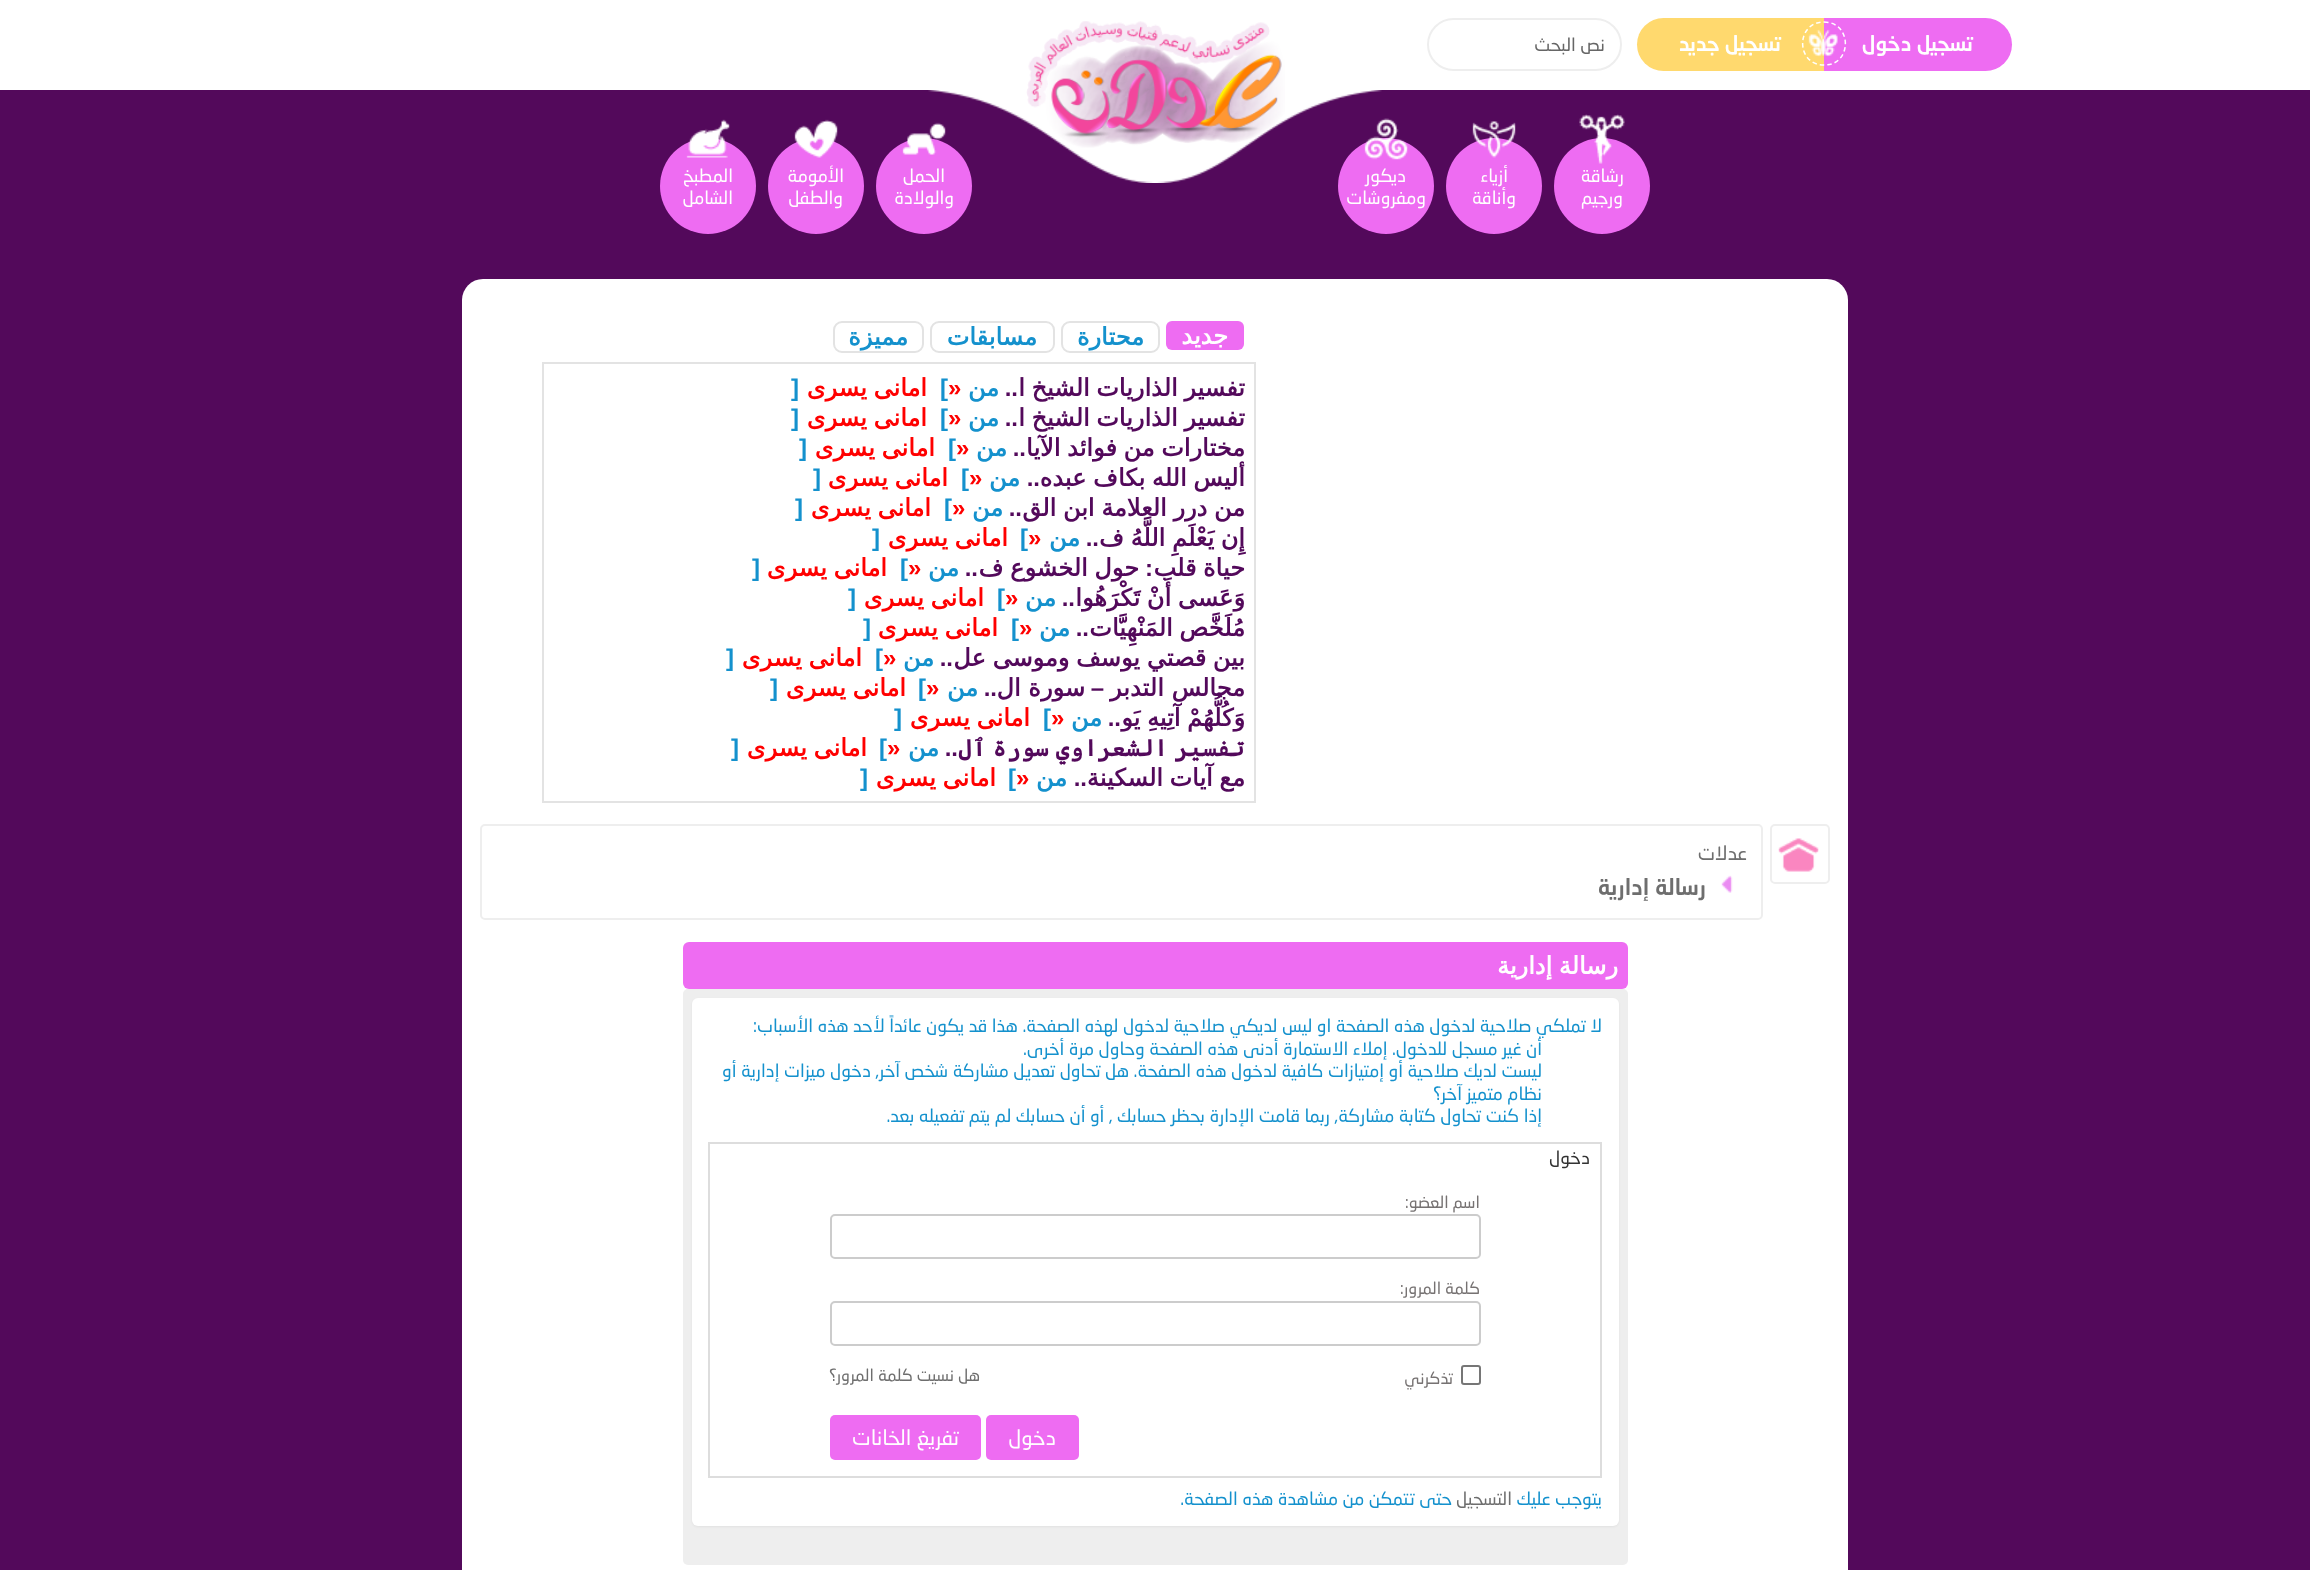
<!DOCTYPE html>
<meta charset="utf-8">
<style>body { margin: 0 } canvas { display: block }</style>
<canvas id="canvas" width="2310" height="1570"></canvas>
<img id="img1" src="images/1.png" hidden>
<img id="img2" src="images/4.png" hidden>
<img id="img3" src="images/5.png" hidden>
<img id="img4" src="images/6.png" hidden>
<img id="img5" src="images/7.png" hidden>
<img id="img6" src="images/8.png" hidden>
<img id="img7" src="images/9.png" hidden>
<img id="img8" src="images/10.png" hidden>
<img id="img9" src="images/11.png" hidden>
<img id="img10" src="images/2.png" hidden>
<img id="img11" src="images/3.png" hidden>
<script>
window.onload = function () {
    const canvas = document.getElementById('canvas');
    const context = canvas.getContext('2d');
    context.miterLimit = 4;
    context.fontKerning = 'normal';

    context.fillStyle = 'rgb(83, 9, 91)';
    context.fillRect(0, 0, 2310, 1570);
    context.fillStyle = 'rgb(255, 255, 255)';
    context.fillRect(0, 0, 2310, 90);
    context.fillStyle = 'rgb(238, 108, 242)';
    context.beginPath();
    context.roundRect(1824, 18, 188, 53, [0, 26.5, 26.5, 0]);
    context.fill();
    context.fillStyle = 'rgb(255, 217, 110)';
    context.beginPath();
    context.roundRect(1637, 18, 187, 53, [26.5, 0, 0, 26.5]);
    context.fill();
    context.beginPath();
    context.moveTo(1824, 22);
    context.bezierCurveTo(1852.5, 22, 1852.5, 65.5, 1824, 65);
    context.bezierCurveTo(1795.5, 65, 1795.5, 22, 1824, 22);
    context.closePath();
    context.strokeStyle = 'rgb(255, 255, 255)';
    context.lineWidth = 1.5;
    context.setLineDash([4.5, 3]);
    context.stroke();
    context.drawImage(document.getElementById('img1'), 1808, 29, 30, 28);
    context.beginPath();
    context.roundRect(1428, 19, 193, 51, 25.5);
    context.strokeStyle = 'rgb(238, 238, 238)';
    context.lineWidth = 2;
    context.setLineDash([]);
    context.stroke();
    context.fillStyle = 'rgb(238, 108, 242)';
    context.beginPath();
    context.arc(1602, 186, 48, 0, 2 * Math.PI);
    context.fill();
    context.drawImage(document.getElementById('img2'), 1579, 114, 46, 50);
    context.beginPath();
    context.arc(1494, 186, 48, 0, 2 * Math.PI);
    context.fill();
    context.drawImage(document.getElementById('img3'), 1472, 121, 44, 37);
    context.beginPath();
    context.arc(1386, 186, 48, 0, 2 * Math.PI);
    context.fill();
    context.drawImage(document.getElementById('img4'), 1364, 118, 44, 42);
    context.beginPath();
    context.arc(924, 186, 48, 0, 2 * Math.PI);
    context.fill();
    context.drawImage(document.getElementById('img5'), 902, 122, 44, 33);
    context.beginPath();
    context.arc(816, 186, 48, 0, 2 * Math.PI);
    context.fill();
    context.drawImage(document.getElementById('img6'), 794, 119, 44, 39);
    context.beginPath();
    context.arc(708, 186, 48, 0, 2 * Math.PI);
    context.fill();
    context.drawImage(document.getElementById('img7'), 686, 119, 44, 39);
    context.fillStyle = 'rgb(255, 255, 255)';
    context.beginPath();
    context.roundRect(462, 279, 1386, 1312, 21);
    context.fill();
    context.fillStyle = 'rgb(238, 108, 242)';
    context.beginPath();
    context.roundRect(1166, 321, 78, 29, 6);
    context.fill();
    context.beginPath();
    context.roundRect(1062, 322, 97, 30, 8);
    context.strokeStyle = 'rgb(227, 227, 227)';
    context.stroke();
    context.beginPath();
    context.roundRect(931, 322, 123, 30, 8);
    context.stroke();
    context.beginPath();
    context.roundRect(834, 322, 89, 30, 8);
    context.stroke();
    context.fillStyle = 'rgb(227, 227, 227)';
    context.fillRect(542, 362, 714, 2);
    context.fillRect(1254, 362, 2, 441);
    context.fillRect(542, 801, 714, 2);
    context.fillRect(542, 362, 2, 441);
    context.beginPath();
    context.roundRect(1771, 825, 58, 58, 4);
    context.strokeStyle = 'rgb(238, 238, 238)';
    context.stroke();
    context.drawImage(document.getElementById('img8'), 1778, 838, 41, 34);
    context.beginPath();
    context.roundRect(481, 825, 1281, 94, 4);
    context.stroke();
    context.drawImage(document.getElementById('img9'), 1721, 875, 12, 18);
    context.fillStyle = 'rgb(238, 108, 242)';
    context.beginPath();
    context.roundRect(683, 942, 945, 47, 6);
    context.fill();
    context.fillStyle = 'rgb(238, 238, 238)';
    context.beginPath();
    context.roundRect(683, 989, 945, 576, 5);
    context.fill();
    context.fillStyle = 'rgba(0, 0, 0, 0.05)';
    context.filter = 'blur(1px)';
    context.beginPath();
    context.roundRect(692, 999, 927, 528, 6);
    context.fill();
    context.filter = 'none';
    context.fillStyle = 'rgb(255, 255, 255)';
    context.beginPath();
    context.roundRect(692, 998, 927, 528, 6);
    context.fill();
    context.strokeStyle = 'rgb(221, 221, 221)';
    context.strokeRect(709, 1143, 892, 334);
    context.beginPath();
    context.roundRect(831, 1215, 649, 43, 4);
    context.strokeStyle = 'rgb(204, 204, 204)';
    context.stroke();
    context.beginPath();
    context.roundRect(831, 1302, 649, 43, 4);
    context.stroke();
    context.beginPath();
    context.roundRect(1462, 1366, 18, 18, 2);
    context.strokeStyle = 'rgb(118, 118, 118)';
    context.stroke();
    context.fillStyle = 'rgb(238, 108, 242)';
    context.beginPath();
    context.roundRect(986, 1415, 93, 45, 5);
    context.fill();
    context.beginPath();
    context.roundRect(830, 1415, 151, 45, 5);
    context.fill();
    context.direction = 'rtl';
    context.font = '500 21px "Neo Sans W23"';
    context.fillStyle = 'rgb(255, 255, 255)';
    context.fillText('تسجيل دخول', 1973, 51);
    context.fillText('تسجيل جديد', 1781, 51);
    context.font = '18px "Neo Sans W23"';
    context.fillStyle = 'rgb(102, 102, 102)';
    context.fillText('نص البحث', 1605, 51);
    context.fillStyle = 'rgb(255, 255, 255)';
    context.fillText('رشاقة', 1624, 182);
    context.fillText('ورجيم', 1623, 204);
    context.fillText('أزياء', 1508, 182);
    context.fillText('وأناقة', 1516, 204);
    context.fillText('ديكور', 1406, 182);
    context.fillText('ومفروشات', 1426, 204);
    context.fillText('الحمل', 945, 182);
    context.drawImage(document.getElementById('img10'), 928, 90, 454, 93);
    context.drawImage(document.getElementById('img11'), 1026, 21, 259, 127);
    context.fillText('والولادة', 954, 204);
    context.fillText('الأمومة', 844, 182);
    context.fillText('والطفل', 843, 204);
    context.fillText('المطبخ', 733, 182);
    context.fillText('الشامل', 733, 204);
    context.font = 'bold 24px DejaVu Sans';
    context.fillText('جديد', 1228, 344);
    context.fillStyle = 'rgb(20, 145, 205)';
    context.fillText('محتارة', 1144, 345);
    context.fillText('مسابقات', 1037, 345);
    context.fillText('مميزة', 908, 345);
    context.wordSpacing = '-1px';
    context.fillStyle = 'rgb(83, 9, 91)';
    context.fillText('تفسير الذاريات الشيخ ا', 1245, 396);
    context.wordSpacing = '0px';
    context.font = 'bold 24px Liberation Sans';
    context.fillText('..', 1018, 396);
    context.font = 'bold 24px DejaVu Sans';
    context.fillStyle = 'rgb(20, 145, 205)';
    context.fillText('من', 999, 396);
    context.direction = 'ltr';
    context.font = 'bold 24px Liberation Sans';
    context.fillStyle = 'rgb(255, 0, 0)';
    context.fillText('»', 948, 396);
    context.fillStyle = 'rgb(20, 145, 205)';
    context.fillText('[', 940, 396);
    context.wordSpacing = '-1px';
    context.direction = 'rtl';
    context.font = 'bold 24px DejaVu Sans';
    context.fillStyle = 'rgb(255, 0, 0)';
    context.fillText('امانى يسرى', 927, 396);
    context.wordSpacing = '0px';
    context.direction = 'ltr';
    context.font = 'bold 24px Liberation Sans';
    context.fillStyle = 'rgb(20, 145, 205)';
    context.fillText(']', 791, 396);
    context.wordSpacing = '-1px';
    context.direction = 'rtl';
    context.font = 'bold 24px DejaVu Sans';
    context.fillStyle = 'rgb(83, 9, 91)';
    context.fillText('تفسير الذاريات الشيخ ا', 1245, 426);
    context.wordSpacing = '0px';
    context.font = 'bold 24px Liberation Sans';
    context.fillText('..', 1018, 426);
    context.font = 'bold 24px DejaVu Sans';
    context.fillStyle = 'rgb(20, 145, 205)';
    context.fillText('من', 999, 426);
    context.direction = 'ltr';
    context.font = 'bold 24px Liberation Sans';
    context.fillStyle = 'rgb(255, 0, 0)';
    context.fillText('»', 948, 426);
    context.fillStyle = 'rgb(20, 145, 205)';
    context.fillText('[', 940, 426);
    context.wordSpacing = '-1px';
    context.direction = 'rtl';
    context.font = 'bold 24px DejaVu Sans';
    context.fillStyle = 'rgb(255, 0, 0)';
    context.fillText('امانى يسرى', 927, 426);
    context.wordSpacing = '0px';
    context.direction = 'ltr';
    context.font = 'bold 24px Liberation Sans';
    context.fillStyle = 'rgb(20, 145, 205)';
    context.fillText(']', 791, 426);
    context.wordSpacing = '-1px';
    context.direction = 'rtl';
    context.font = 'bold 24px DejaVu Sans';
    context.fillStyle = 'rgb(83, 9, 91)';
    context.fillText('مختارات من فوائد الآيا', 1245, 456);
    context.wordSpacing = '0px';
    context.font = 'bold 24px Liberation Sans';
    context.fillText('..', 1026, 456);
    context.font = 'bold 24px DejaVu Sans';
    context.fillStyle = 'rgb(20, 145, 205)';
    context.fillText('من', 1007, 456);
    context.direction = 'ltr';
    context.font = 'bold 24px Liberation Sans';
    context.fillStyle = 'rgb(255, 0, 0)';
    context.fillText('»', 956, 456);
    context.fillStyle = 'rgb(20, 145, 205)';
    context.fillText('[', 948, 456);
    context.wordSpacing = '-1px';
    context.direction = 'rtl';
    context.font = 'bold 24px DejaVu Sans';
    context.fillStyle = 'rgb(255, 0, 0)';
    context.fillText('امانى يسرى', 935, 456);
    context.wordSpacing = '0px';
    context.direction = 'ltr';
    context.font = 'bold 24px Liberation Sans';
    context.fillStyle = 'rgb(20, 145, 205)';
    context.fillText(']', 799, 456);
    context.wordSpacing = '-1px';
    context.direction = 'rtl';
    context.font = 'bold 24px DejaVu Sans';
    context.fillStyle = 'rgb(83, 9, 91)';
    context.fillText('أليس الله بكاف عبده', 1245, 486);
    context.wordSpacing = '0px';
    context.font = 'bold 24px Liberation Sans';
    context.fillText('..', 1040, 486);
    context.font = 'bold 24px DejaVu Sans';
    context.fillStyle = 'rgb(20, 145, 205)';
    context.fillText('من', 1020, 486);
    context.direction = 'ltr';
    context.font = 'bold 24px Liberation Sans';
    context.fillStyle = 'rgb(255, 0, 0)';
    context.fillText('»', 969, 486);
    context.fillStyle = 'rgb(20, 145, 205)';
    context.fillText('[', 961, 486);
    context.wordSpacing = '-1px';
    context.direction = 'rtl';
    context.font = 'bold 24px DejaVu Sans';
    context.fillStyle = 'rgb(255, 0, 0)';
    context.fillText('امانى يسرى', 948, 486);
    context.wordSpacing = '0px';
    context.direction = 'ltr';
    context.font = 'bold 24px Liberation Sans';
    context.fillStyle = 'rgb(20, 145, 205)';
    context.fillText(']', 813, 486);
    context.wordSpacing = '-1px';
    context.direction = 'rtl';
    context.font = 'bold 24px DejaVu Sans';
    context.fillStyle = 'rgb(83, 9, 91)';
    context.fillText('من درر العلامة ابن الق', 1245, 516);
    context.wordSpacing = '0px';
    context.font = 'bold 24px Liberation Sans';
    context.fillText('..', 1022, 516);
    context.font = 'bold 24px DejaVu Sans';
    context.fillStyle = 'rgb(20, 145, 205)';
    context.fillText('من', 1003, 516);
    context.direction = 'ltr';
    context.font = 'bold 24px Liberation Sans';
    context.fillStyle = 'rgb(255, 0, 0)';
    context.fillText('»', 952, 516);
    context.fillStyle = 'rgb(20, 145, 205)';
    context.fillText('[', 944, 516);
    context.wordSpacing = '-1px';
    context.direction = 'rtl';
    context.font = 'bold 24px DejaVu Sans';
    context.fillStyle = 'rgb(255, 0, 0)';
    context.fillText('امانى يسرى', 931, 516);
    context.wordSpacing = '0px';
    context.direction = 'ltr';
    context.font = 'bold 24px Liberation Sans';
    context.fillStyle = 'rgb(20, 145, 205)';
    context.fillText(']', 795, 516);
    context.wordSpacing = '-1px';
    context.direction = 'rtl';
    context.font = 'bold 24px DejaVu Sans';
    context.fillStyle = 'rgb(83, 9, 91)';
    context.fillText('إِن يَعْلَمِ اللَّهُ ف', 1245, 546);
    context.wordSpacing = '0px';
    context.font = 'bold 24px Liberation Sans';
    context.fillText('..', 1099, 546);
    context.font = 'bold 24px DejaVu Sans';
    context.fillStyle = 'rgb(20, 145, 205)';
    context.fillText('من', 1080, 546);
    context.direction = 'ltr';
    context.font = 'bold 24px Liberation Sans';
    context.fillStyle = 'rgb(255, 0, 0)';
    context.fillText('»', 1028, 546);
    context.fillStyle = 'rgb(20, 145, 205)';
    context.fillText('[', 1020, 546);
    context.wordSpacing = '-1px';
    context.direction = 'rtl';
    context.font = 'bold 24px DejaVu Sans';
    context.fillStyle = 'rgb(255, 0, 0)';
    context.fillText('امانى يسرى', 1008, 546);
    context.wordSpacing = '0px';
    context.direction = 'ltr';
    context.font = 'bold 24px Liberation Sans';
    context.fillStyle = 'rgb(20, 145, 205)';
    context.fillText(']', 872, 546);
    context.wordSpacing = '-1px';
    context.direction = 'rtl';
    context.font = 'bold 24px DejaVu Sans';
    context.fillStyle = 'rgb(83, 9, 91)';
    context.fillText('حياة قلب', 1245, 576);
    context.wordSpacing = '0px';
    context.font = 'bold 24px Liberation Sans';
    context.fillText(':', 1153, 576);
    context.wordSpacing = '-1px';
    context.font = 'bold 24px DejaVu Sans';
    context.fillText('حول الخشوع ف', 1139, 576);
    context.wordSpacing = '0px';
    context.font = 'bold 24px Liberation Sans';
    context.fillText('..', 978, 576);
    context.font = 'bold 24px DejaVu Sans';
    context.fillStyle = 'rgb(20, 145, 205)';
    context.fillText('من', 959, 576);
    context.direction = 'ltr';
    context.font = 'bold 24px Liberation Sans';
    context.fillStyle = 'rgb(255, 0, 0)';
    context.fillText('»', 908, 576);
    context.fillStyle = 'rgb(20, 145, 205)';
    context.fillText('[', 900, 576);
    context.wordSpacing = '-1px';
    context.direction = 'rtl';
    context.font = 'bold 24px DejaVu Sans';
    context.fillStyle = 'rgb(255, 0, 0)';
    context.fillText('امانى يسرى', 887, 576);
    context.wordSpacing = '0px';
    context.direction = 'ltr';
    context.font = 'bold 24px Liberation Sans';
    context.fillStyle = 'rgb(20, 145, 205)';
    context.fillText(']', 752, 576);
    context.wordSpacing = '-1px';
    context.direction = 'rtl';
    context.font = 'bold 24px DejaVu Sans';
    context.fillStyle = 'rgb(83, 9, 91)';
    context.fillText('وَعَسى أَنْ تَكْرَهُوا', 1245, 606);
    context.wordSpacing = '0px';
    context.font = 'bold 24px Liberation Sans';
    context.fillText('..', 1075, 606);
    context.font = 'bold 24px DejaVu Sans';
    context.fillStyle = 'rgb(20, 145, 205)';
    context.fillText('من', 1056, 606);
    context.direction = 'ltr';
    context.font = 'bold 24px Liberation Sans';
    context.fillStyle = 'rgb(255, 0, 0)';
    context.fillText('»', 1005, 606);
    context.fillStyle = 'rgb(20, 145, 205)';
    context.fillText('[', 997, 606);
    context.wordSpacing = '-1px';
    context.direction = 'rtl';
    context.font = 'bold 24px DejaVu Sans';
    context.fillStyle = 'rgb(255, 0, 0)';
    context.fillText('امانى يسرى', 984, 606);
    context.wordSpacing = '0px';
    context.direction = 'ltr';
    context.font = 'bold 24px Liberation Sans';
    context.fillStyle = 'rgb(20, 145, 205)';
    context.fillText(']', 848, 606);
    context.wordSpacing = '-1px';
    context.direction = 'rtl';
    context.font = 'bold 24px DejaVu Sans';
    context.fillStyle = 'rgb(83, 9, 91)';
    context.fillText('مُلَخَّص المَنْهِيَّات', 1245, 636);
    context.wordSpacing = '0px';
    context.font = 'bold 24px Liberation Sans';
    context.fillText('..', 1089, 636);
    context.font = 'bold 24px DejaVu Sans';
    context.fillStyle = 'rgb(20, 145, 205)';
    context.fillText('من', 1070, 636);
    context.direction = 'ltr';
    context.font = 'bold 24px Liberation Sans';
    context.fillStyle = 'rgb(255, 0, 0)';
    context.fillText('»', 1019, 636);
    context.fillStyle = 'rgb(20, 145, 205)';
    context.fillText('[', 1011, 636);
    context.wordSpacing = '-1px';
    context.direction = 'rtl';
    context.font = 'bold 24px DejaVu Sans';
    context.fillStyle = 'rgb(255, 0, 0)';
    context.fillText('امانى يسرى', 998, 636);
    context.wordSpacing = '0px';
    context.direction = 'ltr';
    context.font = 'bold 24px Liberation Sans';
    context.fillStyle = 'rgb(20, 145, 205)';
    context.fillText(']', 863, 636);
    context.wordSpacing = '-1px';
    context.direction = 'rtl';
    context.font = 'bold 24px DejaVu Sans';
    context.fillStyle = 'rgb(83, 9, 91)';
    context.fillText('بين قصتي يوسف وموسى عل', 1245, 666);
    context.wordSpacing = '0px';
    context.font = 'bold 24px Liberation Sans';
    context.fillText('..', 953, 666);
    context.font = 'bold 24px DejaVu Sans';
    context.fillStyle = 'rgb(20, 145, 205)';
    context.fillText('من', 934, 666);
    context.direction = 'ltr';
    context.font = 'bold 24px Liberation Sans';
    context.fillStyle = 'rgb(255, 0, 0)';
    context.fillText('»', 883, 666);
    context.fillStyle = 'rgb(20, 145, 205)';
    context.fillText('[', 875, 666);
    context.wordSpacing = '-1px';
    context.direction = 'rtl';
    context.font = 'bold 24px DejaVu Sans';
    context.fillStyle = 'rgb(255, 0, 0)';
    context.fillText('امانى يسرى', 862, 666);
    context.wordSpacing = '0px';
    context.direction = 'ltr';
    context.font = 'bold 24px Liberation Sans';
    context.fillStyle = 'rgb(20, 145, 205)';
    context.fillText(']', 726, 666);
    context.direction = 'rtl';
    context.font = 'bold 24px DejaVu Sans';
    context.fillStyle = 'rgb(83, 9, 91)';
    context.fillText('مجالس التدبر', 1245, 696);
    context.font = 'bold 24px Liberation Sans';
    context.fillText('–', 1104, 696);
    context.font = 'bold 24px DejaVu Sans';
    context.fillText('سورة ال', 1085, 696);
    context.fillStyle = 'rgb(20, 145, 205)';
    context.fillText('من', 978, 696);
    context.direction = 'ltr';
    context.font = 'bold 24px Liberation Sans';
    context.fillStyle = 'rgb(255, 0, 0)';
    context.fillText('»', 926, 696);
    context.fillStyle = 'rgb(20, 145, 205)';
    context.fillText('[', 918, 696);
    context.wordSpacing = '-1px';
    context.direction = 'rtl';
    context.font = 'bold 24px DejaVu Sans';
    context.fillStyle = 'rgb(255, 0, 0)';
    context.fillText('امانى يسرى', 906, 696);
    context.wordSpacing = '0px';
    context.direction = 'ltr';
    context.font = 'bold 24px Liberation Sans';
    context.fillStyle = 'rgb(20, 145, 205)';
    context.fillText(']', 770, 696);
    context.wordSpacing = '-1px';
    context.direction = 'rtl';
    context.font = 'bold 24px DejaVu Sans';
    context.fillStyle = 'rgb(83, 9, 91)';
    context.fillText('وَكُلُّهُمْ آتِيهِ يَو', 1245, 726);
    context.wordSpacing = '0px';
    context.font = 'bold 24px Liberation Sans';
    context.fillText('..', 997, 696);
    context.fillText('..', 1121, 726);
    context.font = 'bold 24px DejaVu Sans';
    context.fillStyle = 'rgb(20, 145, 205)';
    context.fillText('من', 1102, 726);
    context.direction = 'ltr';
    context.font = 'bold 24px Liberation Sans';
    context.fillStyle = 'rgb(255, 0, 0)';
    context.fillText('»', 1051, 726);
    context.fillStyle = 'rgb(20, 145, 205)';
    context.fillText('[', 1043, 726);
    context.wordSpacing = '-1px';
    context.direction = 'rtl';
    context.font = 'bold 24px DejaVu Sans';
    context.fillStyle = 'rgb(255, 0, 0)';
    context.fillText('امانى يسرى', 1030, 726);
    context.wordSpacing = '0px';
    context.direction = 'ltr';
    context.font = 'bold 24px Liberation Sans';
    context.fillStyle = 'rgb(20, 145, 205)';
    context.fillText(']', 894, 726);
    context.wordSpacing = '-7.5px';
    context.direction = 'rtl';
    context.font = 'bold 24px Cascadia Code';
    context.fillStyle = 'rgb(83, 9, 91)';
    context.fillText('تفسير الشعراوي سورة ٱل', 1245, 756);
    context.wordSpacing = '0px';
    context.font = 'bold 24px Liberation Sans';
    context.fillText('..', 958, 756);
    context.font = 'bold 24px DejaVu Sans';
    context.fillStyle = 'rgb(20, 145, 205)';
    context.fillText('من', 939, 756);
    context.direction = 'ltr';
    context.font = 'bold 24px Liberation Sans';
    context.fillStyle = 'rgb(255, 0, 0)';
    context.fillText('»', 887, 756);
    context.fillStyle = 'rgb(20, 145, 205)';
    context.fillText('[', 879, 756);
    context.wordSpacing = '-1px';
    context.direction = 'rtl';
    context.font = 'bold 24px DejaVu Sans';
    context.fillStyle = 'rgb(255, 0, 0)';
    context.fillText('امانى يسرى', 867, 756);
    context.wordSpacing = '0px';
    context.direction = 'ltr';
    context.font = 'bold 24px Liberation Sans';
    context.fillStyle = 'rgb(20, 145, 205)';
    context.fillText(']', 731, 756);
    context.wordSpacing = '-1px';
    context.direction = 'rtl';
    context.font = 'bold 24px DejaVu Sans';
    context.fillStyle = 'rgb(83, 9, 91)';
    context.fillText('مع آيات السكينة', 1245, 786);
    context.wordSpacing = '0px';
    context.font = 'bold 24px Liberation Sans';
    context.fillText('..', 1087, 786);
    context.font = 'bold 24px DejaVu Sans';
    context.fillStyle = 'rgb(20, 145, 205)';
    context.fillText('من', 1067, 786);
    context.direction = 'ltr';
    context.font = 'bold 24px Liberation Sans';
    context.fillStyle = 'rgb(255, 0, 0)';
    context.fillText('»', 1016, 786);
    context.fillStyle = 'rgb(20, 145, 205)';
    context.fillText('[', 1008, 786);
    context.wordSpacing = '-1px';
    context.direction = 'rtl';
    context.font = 'bold 24px DejaVu Sans';
    context.fillStyle = 'rgb(255, 0, 0)';
    context.fillText('امانى يسرى', 996, 786);
    context.wordSpacing = '0px';
    context.direction = 'ltr';
    context.font = 'bold 24px Liberation Sans';
    context.fillStyle = 'rgb(20, 145, 205)';
    context.fillText(']', 860, 786);
    context.direction = 'rtl';
    context.font = '19.5px "Neo Sans W23"';
    context.fillStyle = 'rgb(110, 110, 110)';
    context.fillText('عدلات', 1747, 860);
    context.font = '500 22.5px "Neo Sans W23"';
    context.fillText('رسالة إدارية', 1706, 895);
    context.wordSpacing = '-1px';
    context.font = 'bold 24px DejaVu Sans';
    context.fillStyle = 'rgb(255, 255, 255)';
    context.fillText('رسالة إدارية', 1618, 974);
    context.wordSpacing = '0px';
    context.font = '18px "Neo Sans W23"';
    context.fillStyle = 'rgb(20, 145, 205)';
    context.fillText('لا تملكي صلاحية لدخول هذه الصفحة او ليس لديكي صلاحية لدخول لهذه الصفحة. هذا قد يكون عائداً لأحد هذه الأسباب:', 1602, 1032);
    context.fillText('أن غير مسجل للدخول. إملاء الاستمارة أدنى هذه الصفحة وحاول مرة أخرى.', 1542, 1055);
    context.fillText('ليست لديك صلاحية أو إمتيازات كافية لدخول هذه الصفحة. هل تحاول تعديل مشاركة شخص آخر, دخول ميزات إدارية أو', 1542, 1077);
    context.fillText('نظام متميز آخر؟', 1542, 1100);
    context.fillText('إذا كنت تحاول كتابة مشاركة, ربما قامت الإدارة بحظر حسابك , أو أن حسابك لم يتم تفعيله بعد.', 1542, 1122);
    context.fillStyle = 'rgb(51, 51, 51)';
    context.fillText('دخول', 1590, 1164);
    context.font = '16.5px "Neo Sans W23"';
    context.fillStyle = 'rgb(118, 114, 114)';
    context.fillText('اسم العضو:', 1480, 1208);
    context.fillText('كلمة المرور:', 1480, 1294);
    context.fillText('تذكرني', 1453, 1384);
    context.fillStyle = 'rgb(110, 110, 110)';
    context.fillText('هل نسيت كلمة المرور؟', 980, 1381);
    context.font = '21px "Neo Sans W23"';
    context.fillStyle = 'rgb(255, 255, 255)';
    context.fillText('دخول', 1056, 1445);
    context.fillText('تفريغ الخانات', 959, 1445);
    context.font = '18px "Neo Sans W23"';
    context.fillStyle = 'rgb(20, 145, 205)';
    context.fillText('يتوجب عليك', 1602, 1505);
    context.fillStyle = 'rgb(110, 110, 110)';
    context.fillText('التسجيل', 1512, 1505);
    context.fillStyle = 'rgb(20, 145, 205)';
    context.fillText('حتى تتمكن من مشاهدة هذه الصفحة.', 1452, 1505);
};
</script>
